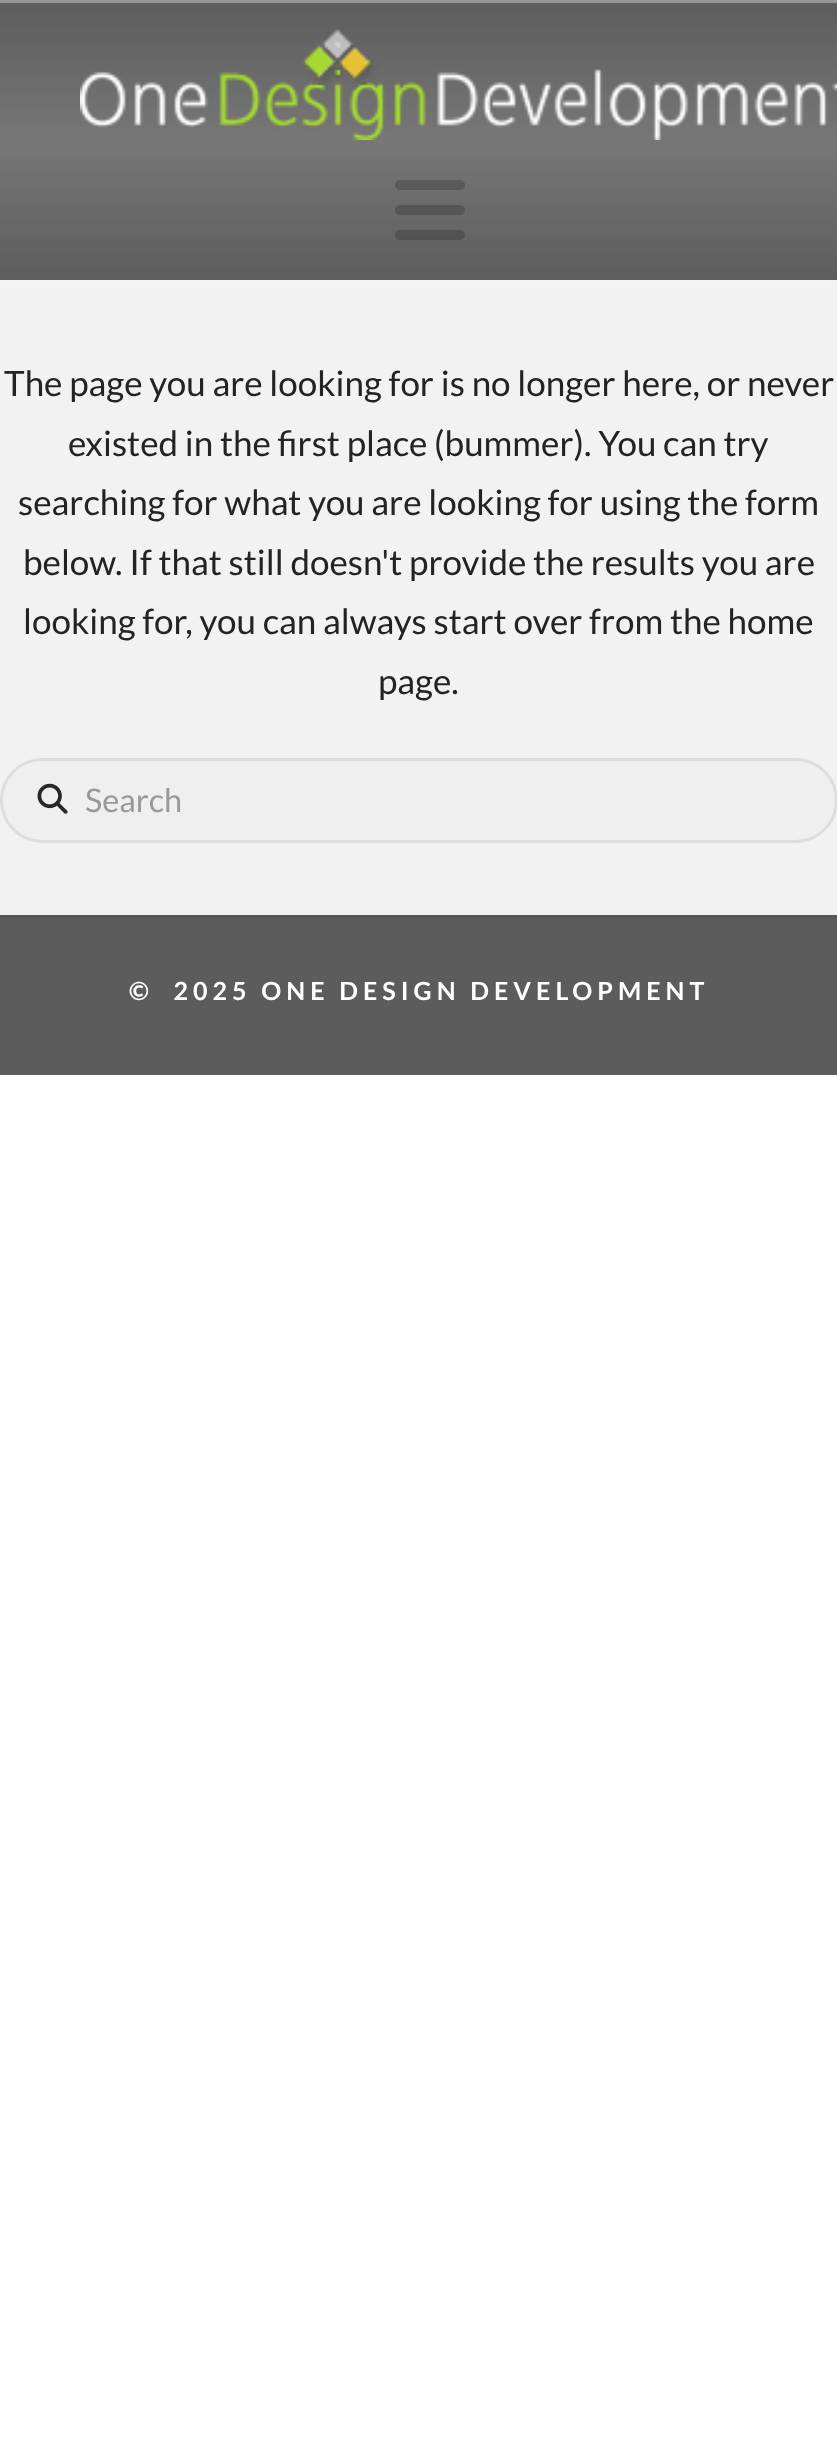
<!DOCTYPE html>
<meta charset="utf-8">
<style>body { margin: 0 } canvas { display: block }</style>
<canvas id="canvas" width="837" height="2463"></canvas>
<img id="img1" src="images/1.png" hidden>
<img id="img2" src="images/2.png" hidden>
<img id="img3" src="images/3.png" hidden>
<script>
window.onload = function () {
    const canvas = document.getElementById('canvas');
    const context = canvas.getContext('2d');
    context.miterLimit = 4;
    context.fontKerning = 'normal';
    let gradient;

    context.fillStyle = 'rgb(255, 255, 255)';
    context.fillRect(0, 0, 837, 2463);
    gradient = context.createLinearGradient(419, 2.5, 419, 280);
    gradient.addColorStop(0, 'rgb(93, 93, 93)');
    gradient.addColorStop(0.5, 'rgb(119, 119, 119)');
    gradient.addColorStop(1, 'rgb(93, 93, 93)');
    context.fillStyle = gradient;
    context.fillRect(0, 3, 837, 277);
    context.fillStyle = 'rgb(152, 151, 151)';
    context.fillRect(0, 0, 837, 3);
    context.fillStyle = 'rgb(243, 243, 243)';
    context.fillRect(0, 280, 837, 3);
    context.drawImage(document.getElementById('img1'), 80, 28, 757, 112);
    context.drawImage(document.getElementById('img2'), 395, 180, 70, 60);
    context.fillStyle = 'rgb(242, 242, 242)';
    context.fillRect(0, 283, 837, 632);
    context.fillStyle = 'rgb(239, 239, 239)';
    context.beginPath();
    context.roundRect(1.5, 759.5, 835, 82, 41);
    context.fill();
    context.strokeStyle = 'rgb(221, 221, 221)';
    context.lineWidth = 3;
    context.stroke();
    context.drawImage(document.getElementById('img3'), 37, 783, 31, 31);
    context.fillStyle = 'rgb(92, 92, 92)';
    context.fillRect(0, 918, 837, 157);
    context.fillStyle = 'rgb(85, 85, 85)';
    context.fillRect(0, 915, 837, 3);
    context.font = '35px Lato';
    context.fillStyle = 'rgb(35, 35, 35)';
    context.fillText('The page you are looking for is no longer here, or never', 4, 396);
    context.fillText('existed in the first place (bummer). You can try', 68, 456);
    context.fillText('searching for what you are looking for using the form', 18, 515);
    context.fillText('below. If that still doesn\'t provide the results you are', 23, 575);
    context.fillText('looking for, you can always start over from the home', 23, 634);
    context.fillText('page.', 378, 694);
    context.font = '32.5px Lato';
    context.fillStyle = 'rgb(153, 153, 153)';
    context.fillText('Search', 85, 812);
    context.letterSpacing = '5px';
    context.font = 'bold 25px Lato';
    context.fillStyle = 'rgb(255, 255, 255)';
    context.fillText('©  2025 ONE DESIGN DEVELOPMENT', 129, 1000);
};
</script>
